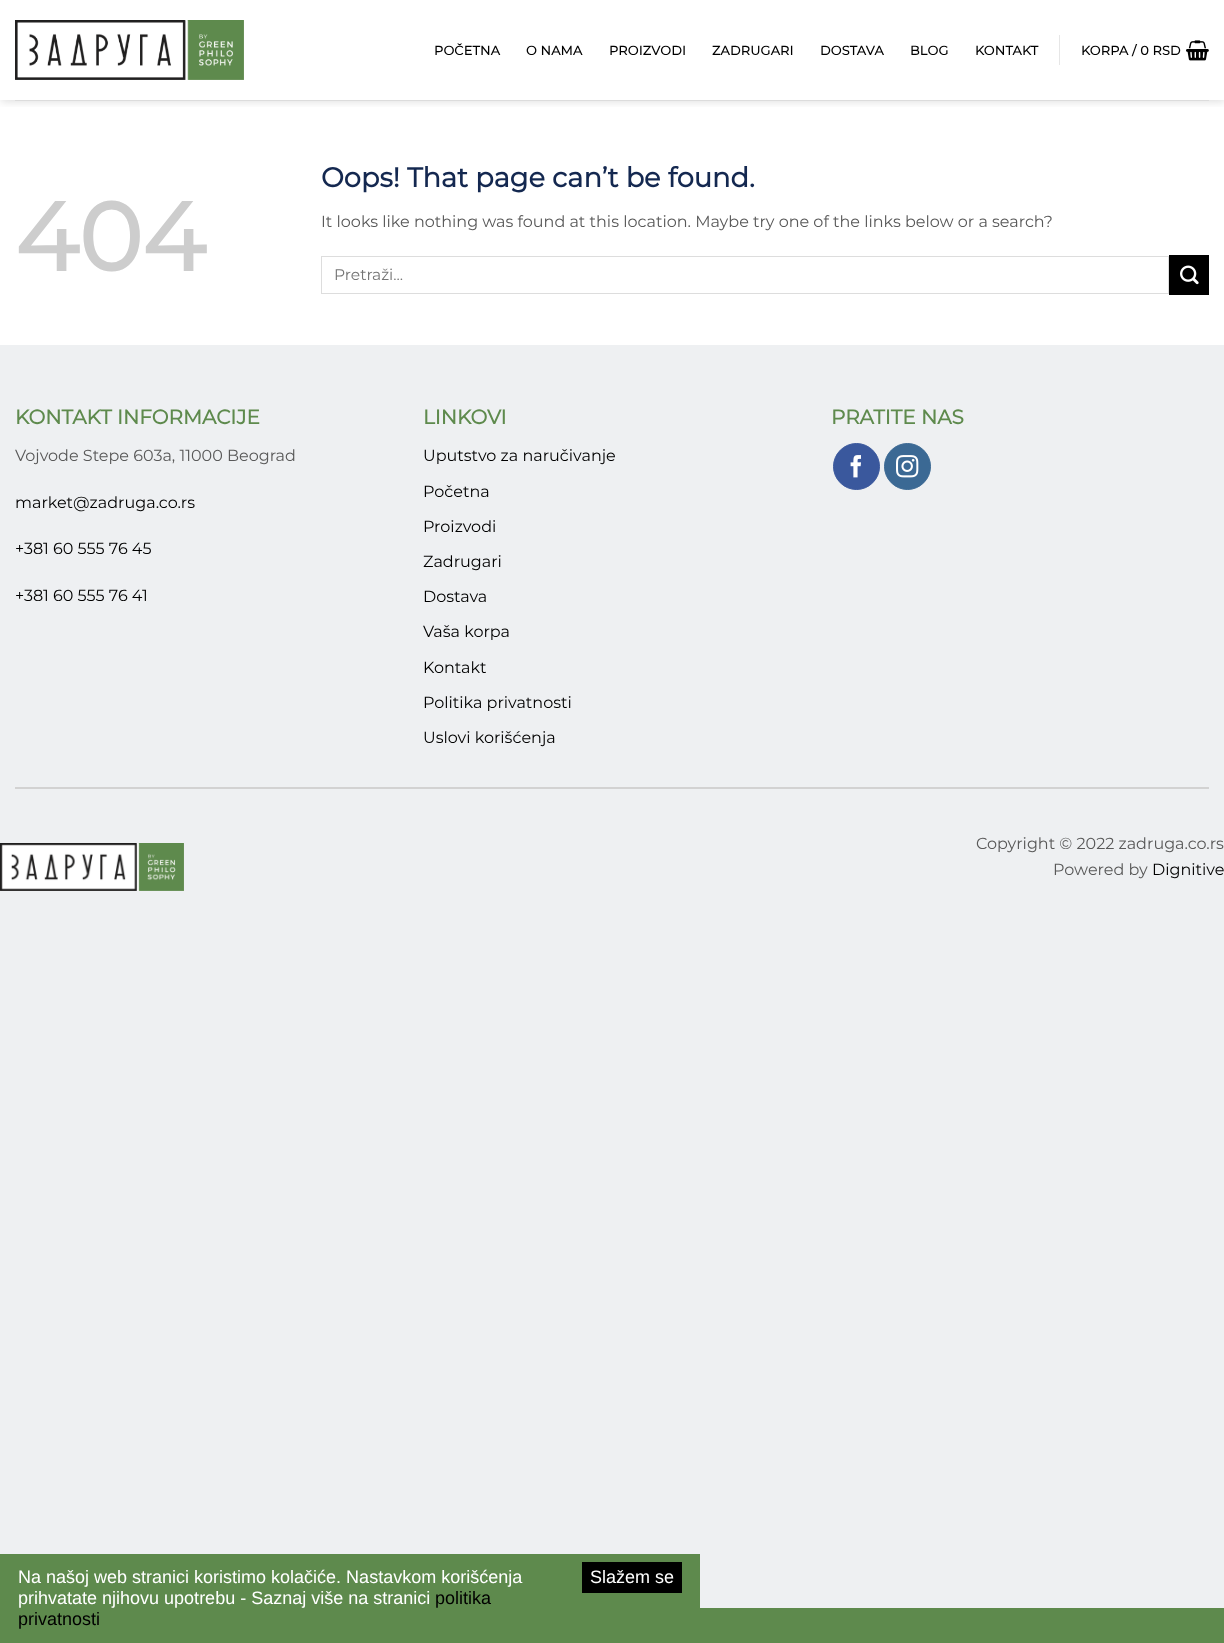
<!DOCTYPE html>
<meta charset="utf-8">
<style>body { margin: 0 } canvas { display: block }</style>
<canvas id="canvas" width="1224" height="1643"></canvas>
<img id="img1" src="images/1.png" hidden>
<img id="img2" src="images/2.png" hidden>
<img id="img3" src="images/3.png" hidden>
<img id="img4" src="images/4.png" hidden>
<img id="img5" src="images/5.png" hidden>
<img id="img6" src="images/6.png" hidden>
<script>
window.onload = function () {
    const canvas = document.getElementById('canvas');
    const context = canvas.getContext('2d');
    context.miterLimit = 4;
    context.fontKerning = 'normal';

    context.fillStyle = 'rgb(238, 240, 242)';
    context.fillRect(0, 0, 1224, 1643);
    context.fillStyle = 'rgb(255, 255, 255)';
    context.fillRect(0, 0, 1224, 345);
    context.save();
    context.beginPath();
    context.rect(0, 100, 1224, 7);
    context.clip();
    context.fillStyle = 'rgba(0, 0, 0, 0.15)';
    context.filter = 'blur(5px)';
    context.beginPath();
    context.rect(1, 1, 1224, 100);
    context.fill();
    context.filter = 'none';
    context.restore();
    context.drawImage(document.getElementById('img1'), 15, 20, 229, 60);
    context.fillStyle = 'rgb(230, 230, 230)';
    context.fillRect(1059, 35, 1, 30);
    context.drawImage(document.getElementById('img2'), 1186, 40, 23, 21);
    context.fillStyle = 'rgb(220, 220, 220)';
    context.fillRect(15, 100, 1194, 1);
    context.strokeStyle = 'rgb(221, 221, 221)';
    context.strokeRect(321.5, 256.5, 847, 37);
    context.fillStyle = 'rgb(0, 0, 0)';
    context.fillRect(1169, 255, 40, 40);
    context.drawImage(document.getElementById('img3'), 1180, 265, 19, 20);
    context.fillStyle = 'rgb(58, 88, 157)';
    context.beginPath();
    context.arc(856.5, 466.5, 23, 0, 2 * Math.PI);
    context.fill();
    context.strokeStyle = 'rgb(58, 88, 157)';
    context.stroke();
    context.drawImage(document.getElementById('img4'), 850, 455, 11, 23);
    context.fillStyle = 'rgb(59, 105, 148)';
    context.beginPath();
    context.arc(907.5, 466.5, 23, 0, 2 * Math.PI);
    context.fill();
    context.strokeStyle = 'rgb(59, 105, 148)';
    context.stroke();
    context.drawImage(document.getElementById('img5'), 896, 455, 23, 23);
    context.fillStyle = 'rgb(210, 210, 210)';
    context.fillRect(15, 787, 1194, 2);
    context.drawImage(document.getElementById('img6'), 0, 843, 184, 48);
    context.fillStyle = 'rgb(94, 138, 77)';
    context.fillRect(0, 1554, 700, 89);
    context.fillStyle = 'rgb(0, 0, 0)';
    context.fillRect(582, 1562, 100, 31);
    context.fillStyle = 'rgb(94, 138, 77)';
    context.fillRect(700, 1608, 524, 35);
    context.letterSpacing = '0.25px';
    context.font = 'bold 12.75px Montserrat';
    context.fillStyle = 'rgb(0, 0, 0)';
    context.fillText('POČETNA', 434, 55);
    context.fillText('O NAMA', 526, 55);
    context.fillText('PROIZVODI', 609, 55);
    context.fillText('ZADRUGARI', 712, 55);
    context.fillText('DOSTAVA', 820, 55);
    context.fillText('BLOG', 910, 55);
    context.fillText('KONTAKT', 975, 55);
    context.fillText('KORPA / 0 RSD', 1081, 55);
    context.letterSpacing = '0px';
    context.font = 'bold 96px Montserrat';
    context.fillStyle = 'rgb(205, 205, 205)';
    context.fillText('404', 15, 271);
    context.font = 'bold 27.25px Montserrat';
    context.fillStyle = 'rgb(20, 40, 80)';
    context.fillText('Oops! That page can’t be found.', 321, 187);
    context.font = '100 16px Montserrat';
    context.fillStyle = 'rgb(89, 89, 89)';
    context.fillText('It looks like nothing was found at this location. Maybe try one of the links below or a search?', 321, 227);
    context.font = '100 15.5px Montserrat';
    context.fillStyle = 'rgb(117, 117, 117)';
    context.fillText('Pretraži...', 334, 280);
    context.font = 'bold 20px Montserrat';
    context.fillStyle = 'rgb(94, 138, 77)';
    context.fillText('KONTAKT INFORMACIJE', 15, 424);
    context.font = '100 16px Montserrat';
    context.fillStyle = 'rgb(89, 89, 89)';
    context.fillText('Vojvode Stepe 603a, 11000 Beograd', 15, 461);
    context.fillStyle = 'rgb(0, 0, 0)';
    context.fillText('market@zadruga.co.rs', 15, 508);
    context.fillText('+381 60 555 76 45', 15, 554);
    context.fillText('+381 60 555 76 41', 15, 601);
    context.font = 'bold 20px Montserrat';
    context.fillStyle = 'rgb(94, 138, 77)';
    context.fillText('LINKOVI', 423, 424);
    context.font = '100 16px Montserrat';
    context.fillStyle = 'rgb(0, 0, 0)';
    context.fillText('Uputstvo za naručivanje', 423, 461);
    context.fillText('Početna', 423, 497);
    context.fillText('Proizvodi', 423, 532);
    context.fillText('Zadrugari', 423, 567);
    context.fillText('Dostava', 423, 602);
    context.fillText('Vaša korpa', 423, 637);
    context.fillText('Kontakt', 423, 673);
    context.fillText('Politika privatnosti', 423, 708);
    context.fillText('Uslovi korišćenja', 423, 743);
    context.font = 'bold 20px Montserrat';
    context.fillStyle = 'rgb(94, 138, 77)';
    context.fillText('PRATITE NAS', 831, 424);
    context.font = '100 16px Montserrat';
    context.fillStyle = 'rgb(89, 89, 89)';
    context.fillText('Copyright © 2022 zadruga.co.rs', 976, 849);
    context.fillText('Powered by', 1053, 875);
    context.fillStyle = 'rgb(0, 0, 0)';
    context.fillText('Dignitive', 1152, 875);
    context.font = '18px Liberation Sans';
    context.fillStyle = 'rgb(255, 255, 255)';
    context.fillText('Na našoj web stranici koristimo kolačiće. Nastavkom korišćenja', 18, 1583);
    context.fillText('prihvatate njihovu upotrebu - Saznaj više na stranici', 18, 1604);
    context.fillStyle = 'rgb(0, 0, 0)';
    context.fillText('politika', 435, 1604);
    context.fillText('privatnosti', 18, 1625);
    context.fillStyle = 'rgb(255, 255, 255)';
    context.fillText('Slažem se', 590, 1583);
};
</script>
